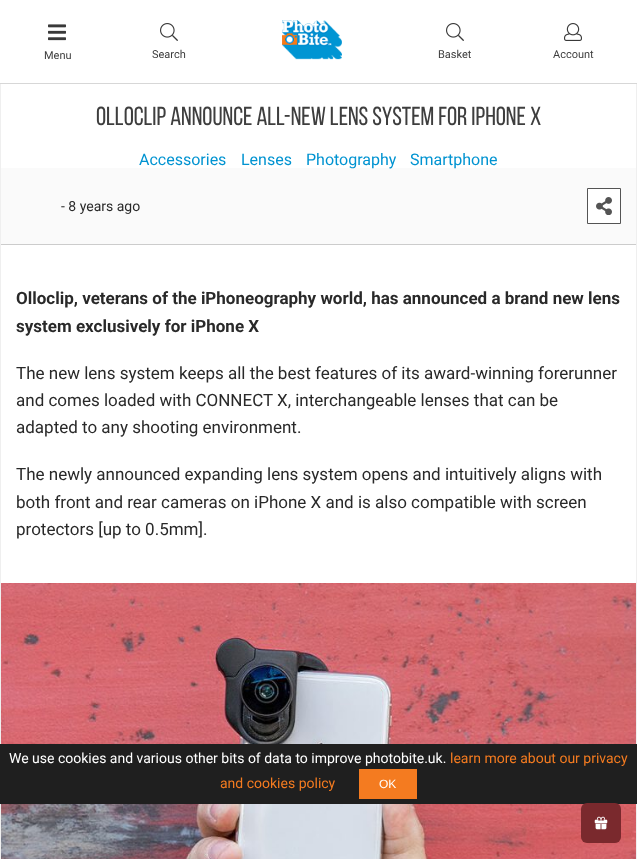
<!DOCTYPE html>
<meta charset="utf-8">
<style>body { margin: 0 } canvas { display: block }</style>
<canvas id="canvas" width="637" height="859"></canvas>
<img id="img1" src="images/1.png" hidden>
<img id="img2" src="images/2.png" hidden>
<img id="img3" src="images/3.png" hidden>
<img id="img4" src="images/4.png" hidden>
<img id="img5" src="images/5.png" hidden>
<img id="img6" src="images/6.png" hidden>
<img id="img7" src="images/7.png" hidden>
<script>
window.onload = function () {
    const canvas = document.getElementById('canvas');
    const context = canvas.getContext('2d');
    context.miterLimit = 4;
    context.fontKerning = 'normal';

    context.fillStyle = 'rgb(255, 255, 255)';
    context.fillRect(0, 0, 637, 859);
    context.strokeStyle = 'rgb(239, 239, 239)';
    context.strokeRect(0.5, 80.5, 636, 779);
    context.fillRect(0, 80, 637, 3);
    context.fillStyle = 'rgb(215, 215, 215)';
    context.fillRect(0, 83, 637, 1);
    context.drawImage(document.getElementById('img1'), 48, 24, 18, 17);
    context.drawImage(document.getElementById('img2'), 160, 23, 18, 18);
    context.drawImage(document.getElementById('img3'), 282, 20, 60, 40);
    context.drawImage(document.getElementById('img2'), 446, 23, 18, 18);
    context.drawImage(document.getElementById('img4'), 564, 23, 18, 18);
    context.fillStyle = 'rgb(250, 250, 250)';
    context.fillRect(1, 168, 635, 76);
    context.fillStyle = 'rgb(204, 204, 204)';
    context.fillRect(1, 244, 635, 1);
    context.fillStyle = 'rgb(255, 255, 255)';
    context.beginPath();
    context.rect(587.5, 188.5, 33, 35);
    context.fill();
    context.strokeStyle = 'rgb(84, 84, 84)';
    context.stroke();
    context.drawImage(document.getElementById('img5'), 596, 197, 16, 18);
    context.drawImage(document.getElementById('img6'), 1, 583, 635, 276);
    context.fillStyle = 'rgb(31, 31, 31)';
    context.fillRect(0, 744, 637, 60);
    context.fillStyle = 'rgb(244, 123, 32)';
    context.fillRect(359, 769, 58, 30);
    context.fillStyle = 'rgb(122, 41, 45)';
    context.beginPath();
    context.roundRect(581, 803, 40, 40, 6);
    context.fill();
    context.drawImage(document.getElementById('img7'), 594, 816, 14, 14);
    context.font = '11px Roboto';
    context.fillStyle = 'rgb(62, 62, 62)';
    context.fillText('Menu', 44, 59);
    context.fillText('Search', 152, 58);
    context.fillText('Basket', 438, 58);
    context.fillText('Account', 553, 58);
    context.font = '26px Bebas Neue';
    context.fillText('Olloclip Announce all-new Lens System for iPhone X', 96, 125);
    context.font = '16px Roboto';
    context.fillStyle = 'rgb(0, 147, 209)';
    context.fillText('Accessories', 139, 165);
    context.fillText('Lenses', 241, 165);
    context.fillText('Photography', 306, 165);
    context.fillText('Smartphone', 410, 165);
    context.font = '14px Roboto';
    context.fillStyle = 'rgb(41, 41, 41)';
    context.fillText('- 8 years ago', 61, 211);
    context.font = 'bold 17px Roboto';
    context.fillText('Olloclip, veterans of the iPhoneography world, has announced a brand new lens', 16, 304);
    context.fillText('system exclusively for iPhone X', 16, 332);
    context.font = '17px Roboto';
    context.fillText('The new lens system keeps all the best features of its award-winning forerunner', 16, 379);
    context.fillText('and comes loaded with CONNECT X, interchangeable lenses that can be', 16, 406);
    context.fillText('adapted to any shooting environment.', 16, 433);
    context.fillText('The newly announced expanding lens system opens and intuitively aligns with', 16, 480);
    context.fillText('both front and rear cameras on iPhone X and is also compatible with screen', 16, 508);
    context.fillText('protectors [up to 0.5mm].', 16, 535);
    context.font = '14px Roboto';
    context.fillStyle = 'rgb(255, 255, 255)';
    context.fillText('We use cookies and various other bits of data to improve photobite.uk.', 9, 763);
    context.fillStyle = 'rgb(244, 123, 32)';
    context.fillText('learn more about our privacy', 450, 763);
    context.fillText('and cookies policy', 220, 788);
    context.font = '12px Liberation Sans';
    context.fillStyle = 'rgb(255, 255, 255)';
    context.fillText('OK', 379, 788);
};
</script>
